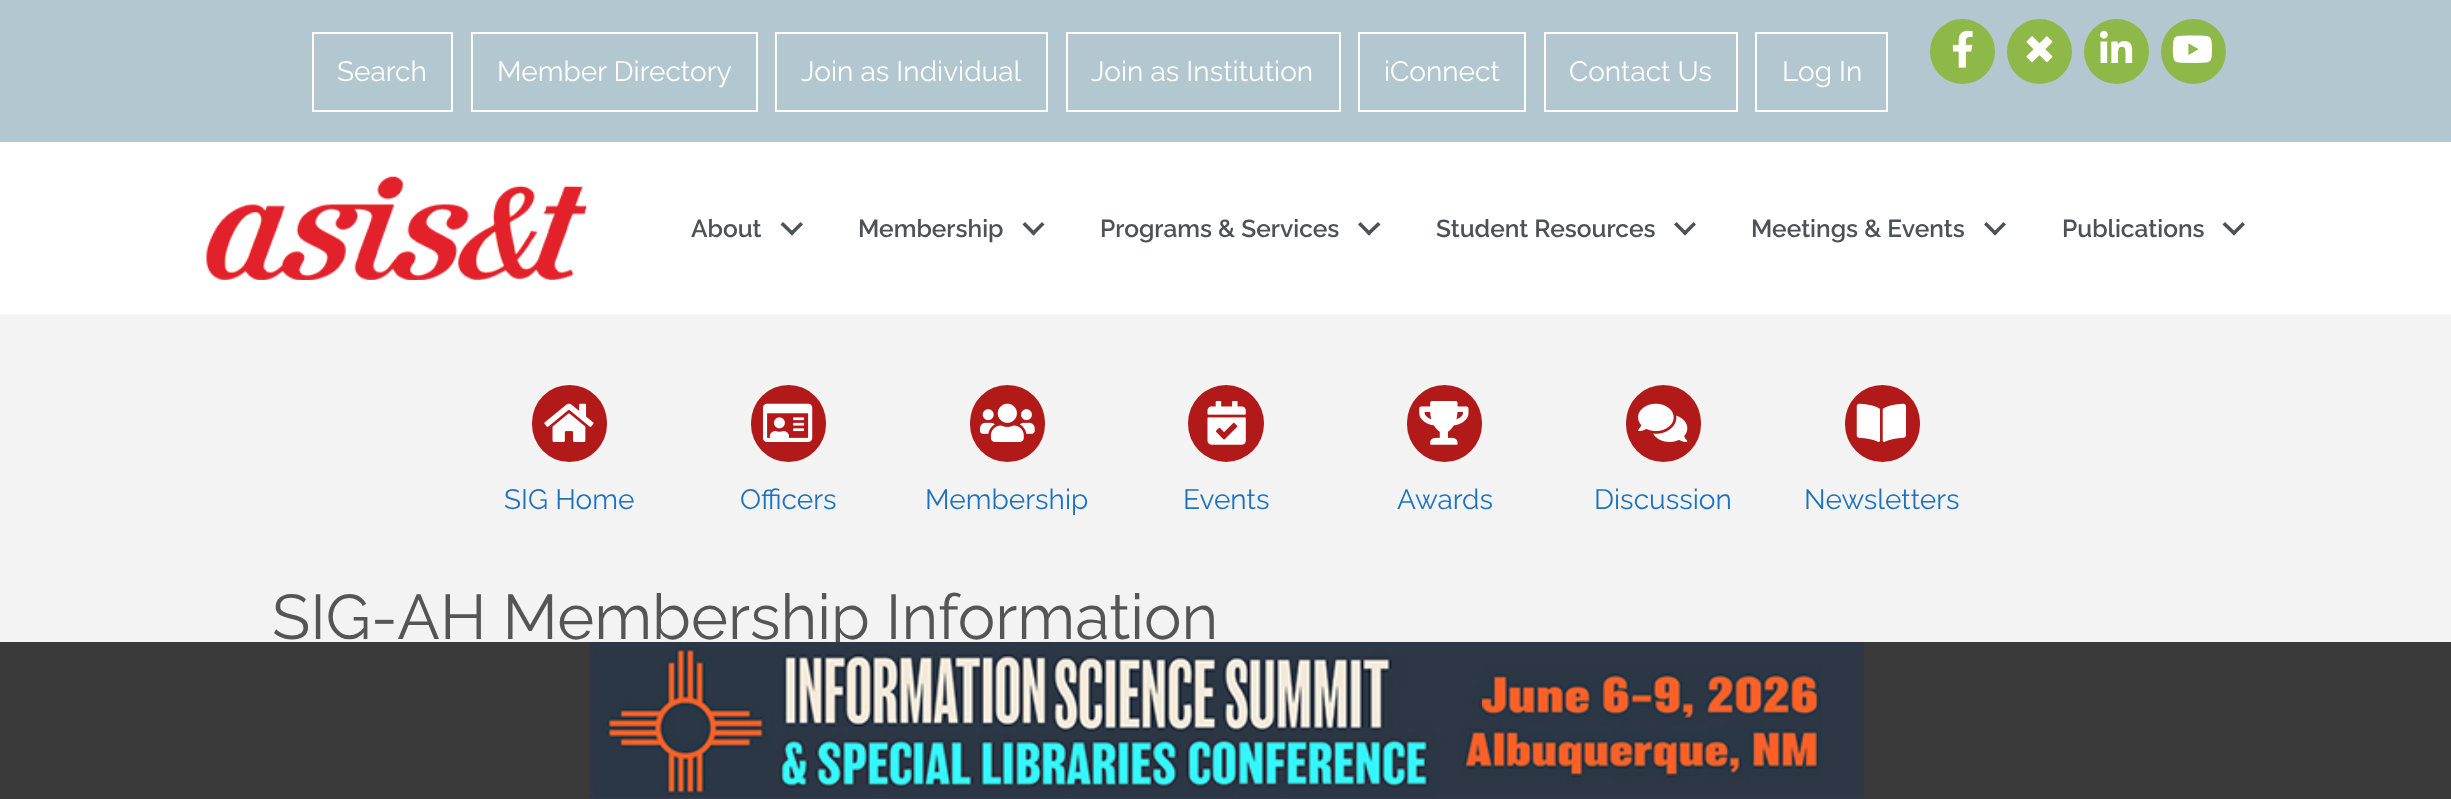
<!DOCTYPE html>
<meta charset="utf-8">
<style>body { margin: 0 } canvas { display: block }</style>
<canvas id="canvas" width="2451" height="799"></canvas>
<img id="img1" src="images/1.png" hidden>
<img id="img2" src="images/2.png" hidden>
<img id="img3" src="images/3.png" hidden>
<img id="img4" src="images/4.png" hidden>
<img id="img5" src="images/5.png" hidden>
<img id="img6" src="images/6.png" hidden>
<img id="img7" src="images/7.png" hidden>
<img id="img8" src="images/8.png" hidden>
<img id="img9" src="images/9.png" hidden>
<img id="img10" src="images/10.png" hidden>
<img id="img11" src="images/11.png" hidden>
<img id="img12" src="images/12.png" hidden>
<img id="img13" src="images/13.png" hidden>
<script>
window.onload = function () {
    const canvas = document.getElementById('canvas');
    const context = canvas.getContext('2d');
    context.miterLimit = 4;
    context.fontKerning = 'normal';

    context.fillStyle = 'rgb(178, 199, 208)';
    context.fillRect(0, 0, 2451, 799);
    context.strokeStyle = 'rgb(255, 255, 255)';
    context.lineWidth = 2;
    context.strokeRect(313, 33, 139, 78);
    context.strokeRect(472, 33, 285, 78);
    context.strokeRect(776, 33, 271, 78);
    context.strokeRect(1067, 33, 273, 78);
    context.strokeRect(1359, 33, 166, 78);
    context.strokeRect(1545, 33, 192, 78);
    context.strokeRect(1756, 33, 131, 78);
    context.fillStyle = 'rgb(142, 184, 72)';
    context.beginPath();
    context.arc(1962.5, 51.5, 32.5, 0, 2 * Math.PI);
    context.fill();
    context.drawImage(document.getElementById('img1'), 1952, 30, 21, 38);
    context.beginPath();
    context.arc(2039.5, 51.5, 32.5, 0, 2 * Math.PI);
    context.fill();
    context.drawImage(document.getElementById('img2'), 2026, 36, 27, 27);
    context.beginPath();
    context.arc(2116.5, 51.5, 32.5, 0, 2 * Math.PI);
    context.fill();
    context.drawImage(document.getElementById('img3'), 2100, 30, 33, 33);
    context.beginPath();
    context.arc(2193.5, 51.5, 32.5, 0, 2 * Math.PI);
    context.fill();
    context.drawImage(document.getElementById('img4'), 2172, 35, 40, 28);
    context.fillStyle = 'rgb(255, 255, 255)';
    context.fillRect(0, 142, 2451, 173);
    context.drawImage(document.getElementById('img5'), 206, 176, 381, 104);
    context.fillStyle = 'rgb(76, 82, 86)';
    context.beginPath();
    context.moveTo(800.5, 222);
    context.lineTo(803, 224.5);
    context.lineTo(792, 235.5);
    context.lineTo(789.5, 233);
    context.closePath();
    context.fill();
    context.beginPath();
    context.moveTo(783, 222);
    context.lineTo(794.5, 233);
    context.lineTo(792, 235.5);
    context.lineTo(780.5, 224.5);
    context.closePath();
    context.fill();
    context.beginPath();
    context.moveTo(1042, 222);
    context.lineTo(1044.5, 224.5);
    context.lineTo(1033.5, 235.5);
    context.lineTo(1031, 233);
    context.closePath();
    context.fill();
    context.beginPath();
    context.moveTo(1025, 222);
    context.lineTo(1036, 233);
    context.lineTo(1033.5, 235.5);
    context.lineTo(1022.5, 224.5);
    context.closePath();
    context.fill();
    context.beginPath();
    context.moveTo(1378, 222);
    context.lineTo(1380.5, 224.5);
    context.lineTo(1369, 235.5);
    context.lineTo(1366.5, 233);
    context.closePath();
    context.fill();
    context.beginPath();
    context.moveTo(1360.5, 222);
    context.lineTo(1371.5, 233);
    context.lineTo(1369, 235.5);
    context.lineTo(1358, 224.5);
    context.closePath();
    context.fill();
    context.beginPath();
    context.moveTo(1693.5, 222);
    context.lineTo(1696, 224.5);
    context.lineTo(1685, 235.5);
    context.lineTo(1682.5, 233);
    context.closePath();
    context.fill();
    context.beginPath();
    context.moveTo(1676.5, 222);
    context.lineTo(1687.5, 233);
    context.lineTo(1685, 235.5);
    context.lineTo(1674, 224.5);
    context.closePath();
    context.fill();
    context.beginPath();
    context.moveTo(2003.5, 222);
    context.lineTo(2006, 224.5);
    context.lineTo(1995, 235.5);
    context.lineTo(1992.5, 233);
    context.closePath();
    context.fill();
    context.beginPath();
    context.moveTo(1986.5, 222);
    context.lineTo(1997.5, 233);
    context.lineTo(1995, 235.5);
    context.lineTo(1984, 224.5);
    context.closePath();
    context.fill();
    context.beginPath();
    context.moveTo(2242.5, 222);
    context.lineTo(2245, 224.5);
    context.lineTo(2234, 235.5);
    context.lineTo(2231.5, 233);
    context.closePath();
    context.fill();
    context.beginPath();
    context.moveTo(2225, 222);
    context.lineTo(2236.5, 233);
    context.lineTo(2234, 235.5);
    context.lineTo(2222.5, 224.5);
    context.closePath();
    context.fill();
    context.fillStyle = 'rgb(243, 243, 243)';
    context.fillRect(0, 315, 2451, 484);
    context.fillStyle = 'rgb(178, 26, 26)';
    context.beginPath();
    context.roundRect(532, 385, 75, 77, 37.5);
    context.fill();
    context.drawImage(document.getElementById('img6'), 544, 403, 50, 39);
    context.beginPath();
    context.roundRect(751, 385, 75, 77, 37.5);
    context.fill();
    context.drawImage(document.getElementById('img7'), 763, 403, 50, 39);
    context.beginPath();
    context.roundRect(970, 385, 75, 77, 37.5);
    context.fill();
    context.drawImage(document.getElementById('img8'), 980, 403, 55, 39);
    context.beginPath();
    context.roundRect(1188, 385, 76, 77, 38);
    context.fill();
    context.drawImage(document.getElementById('img9'), 1207, 401, 39, 44);
    context.beginPath();
    context.roundRect(1407, 385, 75, 77, 37.5);
    context.fill();
    context.drawImage(document.getElementById('img10'), 1419, 401, 50, 44);
    context.beginPath();
    context.roundRect(1626, 385, 75, 77, 37.5);
    context.fill();
    context.drawImage(document.getElementById('img11'), 1638, 403, 50, 39);
    context.beginPath();
    context.roundRect(1845, 385, 75, 77, 37.5);
    context.fill();
    context.drawImage(document.getElementById('img12'), 1856, 403, 50, 39);
    context.font = '28px Raleway';
    context.fillStyle = 'rgb(255, 255, 255)';
    context.fillText('Search', 337, 81);
    context.fillText('Member Directory', 497, 81);
    context.fillText('Join as Individual', 801, 81);
    context.fillText('Join as Institution', 1091, 81);
    context.fillText('iConnect', 1384, 81);
    context.fillText('Contact Us', 1569, 81);
    context.fillText('Log In', 1782, 81);
    context.font = '600 24.5px Raleway';
    context.fillStyle = 'rgb(76, 82, 86)';
    context.fillText('About', 691, 237);
    context.fillText('Membership', 858, 237);
    context.fillText('Programs & Services', 1100, 237);
    context.fillText('Student Resources', 1436, 237);
    context.fillText('Meetings & Events', 1751, 237);
    context.fillText('Publications', 2062, 237);
    context.font = '28px Raleway';
    context.fillStyle = 'rgb(30, 115, 190)';
    context.fillText('SIG Home', 504, 509);
    context.fillText('Officers', 740, 509);
    context.fillText('Membership', 925, 509);
    context.fillText('Events', 1183, 509);
    context.fillText('Awards', 1397, 509);
    context.fillText('Discussion', 1594, 509);
    context.fillText('Newsletters', 1804, 509);
    context.font = '63px Raleway';
    context.fillStyle = 'rgb(85, 85, 85)';
    context.fillText('SIG-AH Membership Information', 272, 639);
    context.fillStyle = 'rgba(47, 47, 47, 0.95)';
    context.fillRect(0, 642, 2451, 157);
    context.drawImage(document.getElementById('img13'), 589, 642, 1275, 157);
};
</script>
